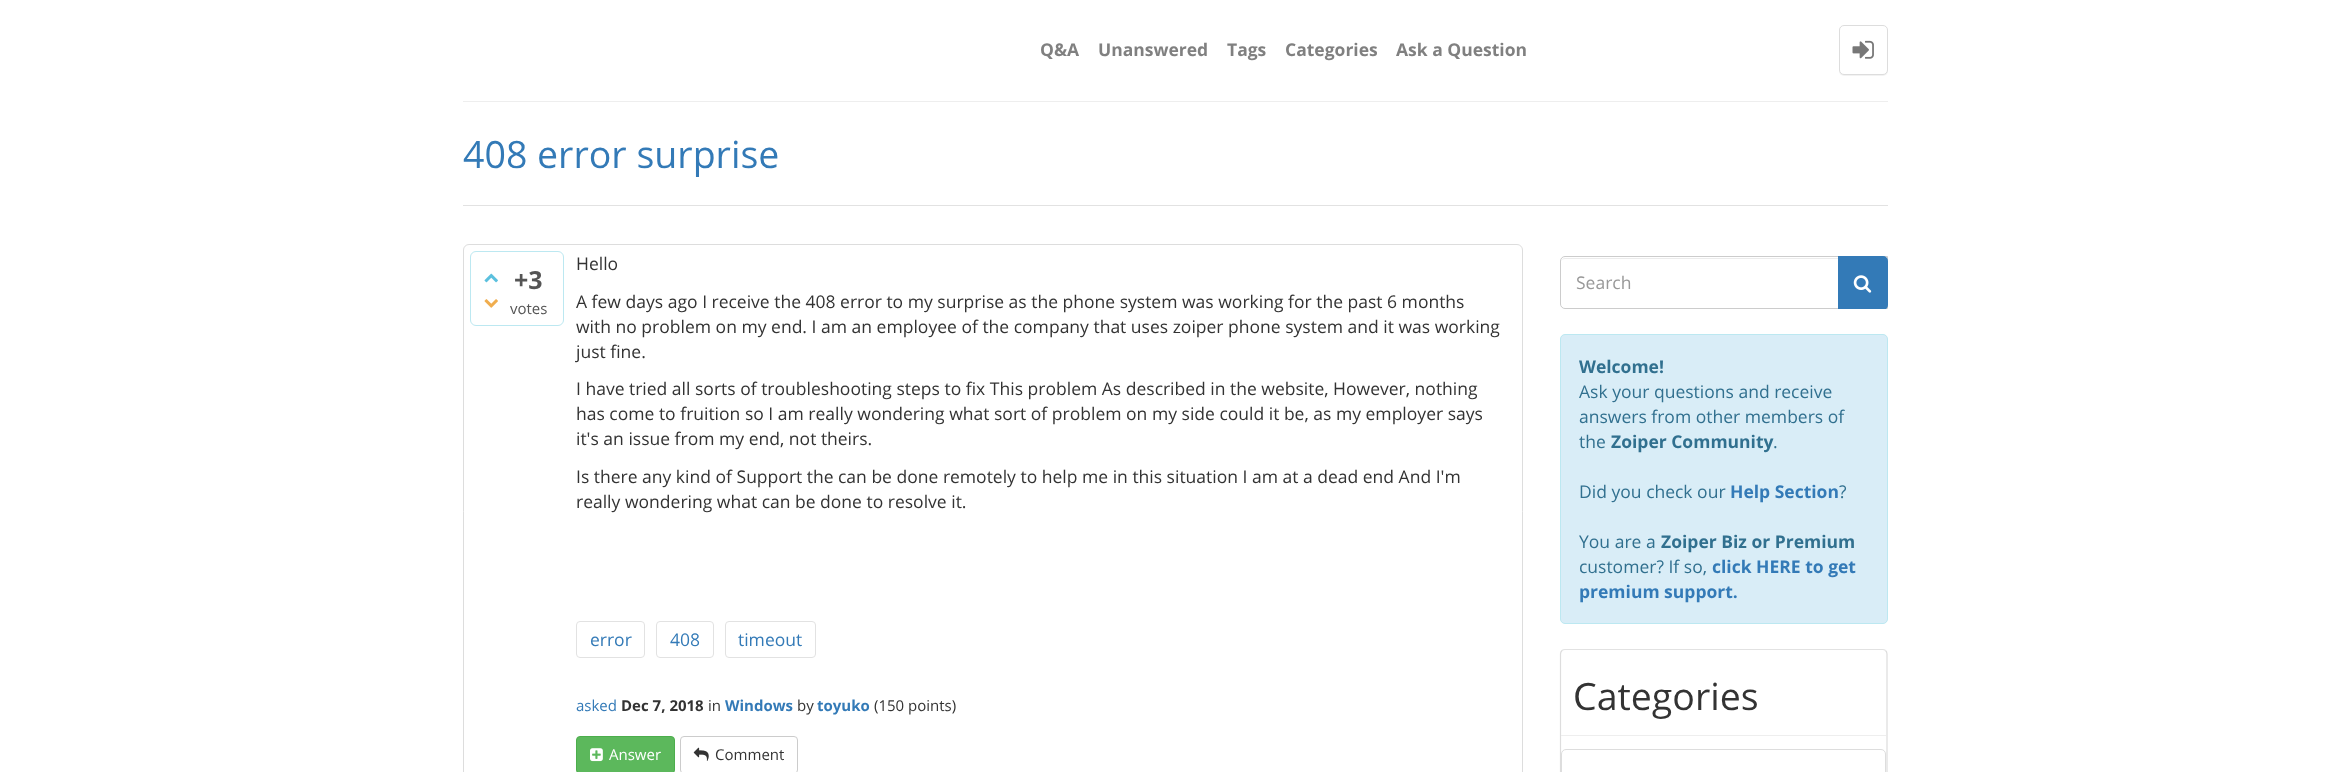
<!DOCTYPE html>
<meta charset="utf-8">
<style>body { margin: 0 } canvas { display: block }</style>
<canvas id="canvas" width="2349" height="772"></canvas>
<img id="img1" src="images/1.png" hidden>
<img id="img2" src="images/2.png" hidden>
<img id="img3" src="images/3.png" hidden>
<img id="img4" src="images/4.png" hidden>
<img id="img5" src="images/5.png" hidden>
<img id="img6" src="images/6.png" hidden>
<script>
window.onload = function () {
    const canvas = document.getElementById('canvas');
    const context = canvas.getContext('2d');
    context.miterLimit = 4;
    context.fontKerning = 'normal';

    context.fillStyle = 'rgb(255, 255, 255)';
    context.fillRect(0, 0, 2349, 772);
    context.fillStyle = 'rgba(0, 0, 0, 0.05)';
    context.filter = 'blur(0.5px)';
    context.beginPath();
    context.roundRect(1839, 26, 49, 50, 5);
    context.fill();
    context.filter = 'none';
    context.fillStyle = 'rgb(255, 255, 255)';
    context.beginPath();
    context.roundRect(1839.5, 25.5, 48, 49, 4.5);
    context.fill();
    context.strokeStyle = 'rgb(221, 221, 221)';
    context.stroke();
    context.drawImage(document.getElementById('img1'), 1852, 40, 22, 19);
    context.fillStyle = 'rgb(238, 238, 238)';
    context.fillRect(463, 101, 1425, 1);
    context.fillStyle = 'rgb(226, 226, 226)';
    context.fillRect(463, 205, 1425, 1);
    context.beginPath();
    context.roundRect(463.5, 244.5, 1059, 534, 5.5);
    context.stroke();
    context.beginPath();
    context.roundRect(470.5, 251.5, 93, 74, 5.5);
    context.strokeStyle = 'rgb(188, 232, 241)';
    context.stroke();
    context.drawImage(document.getElementById('img2'), 484, 273, 14, 10);
    context.drawImage(document.getElementById('img3'), 484, 299, 14, 9);
    context.beginPath();
    context.roundRect(576.5, 621.5, 68, 36, 3.5);
    context.strokeStyle = 'rgb(226, 226, 226)';
    context.stroke();
    context.beginPath();
    context.roundRect(656.5, 621.5, 57, 36, 3.5);
    context.stroke();
    context.beginPath();
    context.roundRect(725.5, 621.5, 90, 36, 3.5);
    context.stroke();
    context.fillStyle = 'rgb(92, 184, 92)';
    context.beginPath();
    context.roundRect(576.5, 736.5, 98, 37, 3.5);
    context.fill();
    context.strokeStyle = 'rgb(76, 174, 76)';
    context.stroke();
    context.drawImage(document.getElementById('img4'), 590, 748, 13, 14);
    context.beginPath();
    context.roundRect(680.5, 736.5, 117, 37, 3.5);
    context.strokeStyle = 'rgb(204, 204, 204)';
    context.stroke();
    context.drawImage(document.getElementById('img5'), 693, 747, 16, 14);
    context.fillStyle = 'rgb(236, 236, 236)';
    context.beginPath();
    context.moveTo(1565, 259);
    context.lineTo(1886, 259);
    context.lineTo(1886, 258);
    context.lineTo(1565, 258);
    context.bezierCurveTo(1563, 258, 1561, 260, 1561, 262);
    context.bezierCurveTo(1561, 260, 1563, 259, 1565, 259);
    context.closePath();
    context.fill();
    context.beginPath();
    context.roundRect(1560.5, 256.5, 327, 52, [4.5, 0, 0, 4.5]);
    context.stroke();
    context.save();
    context.beginPath();
    context.rect(1560, 256, 328, 53);
    context.clip();
    context.fillStyle = 'rgb(51, 122, 183)';
    context.beginPath();
    context.roundRect(1838, 256, 50, 54, [0, 5, 5, 0]);
    context.fill();
    context.restore();
    context.drawImage(document.getElementById('img6'), 1853, 275, 19, 18);
    context.fillStyle = 'rgb(217, 237, 247)';
    context.beginPath();
    context.roundRect(1560.5, 334.5, 327, 289, 4.5);
    context.fill();
    context.strokeStyle = 'rgb(188, 232, 241)';
    context.stroke();
    context.beginPath();
    context.moveTo(1562, 650.5);
    context.bezierCurveTo(1562.5, 650, 1564, 649.5, 1565, 649.5);
    context.lineTo(1882.5, 649.5);
    context.bezierCurveTo(1883.5, 649.5, 1885, 650, 1885.5, 650.5);
    context.strokeStyle = 'rgb(226, 226, 226)';
    context.lineWidth = 1.2;
    context.stroke();
    context.beginPath();
    context.moveTo(1885.5, 650.5);
    context.bezierCurveTo(1886.5, 651.5, 1887, 652.5, 1887, 654);
    context.lineTo(1887, 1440);
    context.bezierCurveTo(1887, 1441, 1886.5, 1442.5, 1885.5, 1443);
    context.bezierCurveTo(1885, 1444, 1883.5, 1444.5, 1882.5, 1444.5);
    context.lineTo(1565, 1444.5);
    context.bezierCurveTo(1564, 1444.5, 1562.5, 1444, 1562, 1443);
    context.bezierCurveTo(1561, 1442.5, 1560.5, 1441, 1560.5, 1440);
    context.lineTo(1560.5, 654);
    context.bezierCurveTo(1560.5, 652.5, 1561, 651.5, 1562, 650.5);
    context.strokeStyle = 'rgb(221, 221, 221)';
    context.stroke();
    context.fillStyle = 'rgb(238, 238, 238)';
    context.fillRect(1561, 735, 325, 1);
    context.fillStyle = 'rgb(255, 255, 255)';
    context.beginPath();
    context.moveTo(1566, 749.5);
    context.lineTo(1881, 749.5);
    context.bezierCurveTo(1883.5, 749.5, 1885.5, 751.5, 1885.5, 754);
    context.lineTo(1885.5, 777.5);
    context.lineTo(1561.5, 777.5);
    context.lineTo(1561.5, 754);
    context.bezierCurveTo(1561.5, 751.5, 1563.5, 749.5, 1566, 749.5);
    context.closePath();
    context.fill();
    context.lineWidth = 1;
    context.stroke();
    context.font = 'bold 17.5px Open Sans';
    context.fillStyle = 'rgb(128, 128, 128)';
    context.fillText('Q&A', 1040, 56);
    context.fillText('Unanswered', 1098, 56);
    context.fillText('Tags', 1227, 56);
    context.fillText('Categories', 1285, 56);
    context.fillText('Ask a Question', 1396, 56);
    context.font = '37.5px Open Sans';
    context.fillStyle = 'rgb(51, 122, 183)';
    context.fillText('408 error surprise', 463, 168);
    context.font = 'bold 25px Open Sans';
    context.fillStyle = 'rgb(85, 85, 85)';
    context.fillText('+3', 514, 289);
    context.font = '15px Open Sans';
    context.fillText('votes', 510, 314);
    context.font = '17.5px Open Sans';
    context.fillStyle = 'rgb(51, 51, 51)';
    context.fillText('Hello', 576, 270);
    context.fillText('A few days ago I receive the 408 error to my surprise as the phone system was working for the past 6 months', 576, 308);
    context.fillText('with no problem on my end. I am an employee of the company that uses zoiper phone system and it was working', 576, 333);
    context.fillText('just fine.', 576, 358);
    context.fillText('I have tried all sorts of troubleshooting steps to fix This problem As described in the website, However, nothing', 576, 395);
    context.fillText('has come to fruition so I am really wondering what sort of problem on my side could it be, as my employer says', 576, 420);
    context.fillText('it\'s an issue from my end, not theirs.', 576, 445);
    context.fillText('Is there any kind of Support the can be done remotely to help me in this situation I am at a dead end And I\'m', 576, 483);
    context.fillText('really wondering what can be done to resolve it.', 576, 508);
    context.fillStyle = 'rgb(51, 122, 183)';
    context.fillText('error', 590, 646);
    context.fillText('408', 670, 646);
    context.fillText('timeout', 738, 646);
    context.font = '15px Open Sans';
    context.fillText('asked', 576, 711);
    context.font = 'bold 15px Open Sans';
    context.fillStyle = 'rgb(51, 51, 51)';
    context.fillText('Dec 7, 2018', 621, 711);
    context.font = '15px Open Sans';
    context.fillText('in', 708, 711);
    context.font = 'bold 15px Open Sans';
    context.fillStyle = 'rgb(51, 122, 183)';
    context.fillText('Windows', 725, 711);
    context.font = '15px Open Sans';
    context.fillStyle = 'rgb(51, 51, 51)';
    context.fillText('by', 797, 711);
    context.font = 'bold 15px Open Sans';
    context.fillStyle = 'rgb(51, 122, 183)';
    context.fillText('toyuko', 817, 711);
    context.font = '15px Open Sans';
    context.fillStyle = 'rgb(51, 51, 51)';
    context.fillText('(150 points)', 874, 711);
    context.fillStyle = 'rgb(255, 255, 255)';
    context.fillText('Answer', 609, 760);
    context.fillStyle = 'rgb(51, 51, 51)';
    context.fillText('Comment', 715, 760);
    context.font = '17.5px Open Sans';
    context.fillStyle = 'rgb(153, 153, 153)';
    context.fillText('Search', 1576, 289);
    context.font = 'bold 17.5px Open Sans';
    context.fillStyle = 'rgb(49, 112, 143)';
    context.fillText('Welcome!', 1579, 373);
    context.font = '17.5px Open Sans';
    context.fillText('Ask your questions and receive', 1579, 398);
    context.fillText('answers from other members of', 1579, 423);
    context.fillText('the', 1579, 448);
    context.font = 'bold 17.5px Open Sans';
    context.fillText('Zoiper Community', 1611, 448);
    context.font = '17.5px Open Sans';
    context.fillText('.', 1773, 448);
    context.fillText('Did you check our', 1579, 498);
    context.font = 'bold 17.5px Open Sans';
    context.fillStyle = 'rgb(51, 122, 183)';
    context.fillText('Help Section', 1730, 498);
    context.font = '17.5px Open Sans';
    context.fillStyle = 'rgb(49, 112, 143)';
    context.fillText('?', 1839, 498);
    context.fillText('You are a', 1579, 548);
    context.font = 'bold 17.5px Open Sans';
    context.fillText('Zoiper Biz or Premium', 1661, 548);
    context.font = '17.5px Open Sans';
    context.fillText('customer? If so,', 1579, 573);
    context.font = 'bold 17.5px Open Sans';
    context.fillStyle = 'rgb(51, 122, 183)';
    context.fillText('click HERE to get', 1712, 573);
    context.fillText('premium support.', 1579, 598);
    context.font = '37.5px Open Sans';
    context.fillStyle = 'rgb(51, 51, 51)';
    context.fillText('Categories', 1573, 710);
};
</script>
